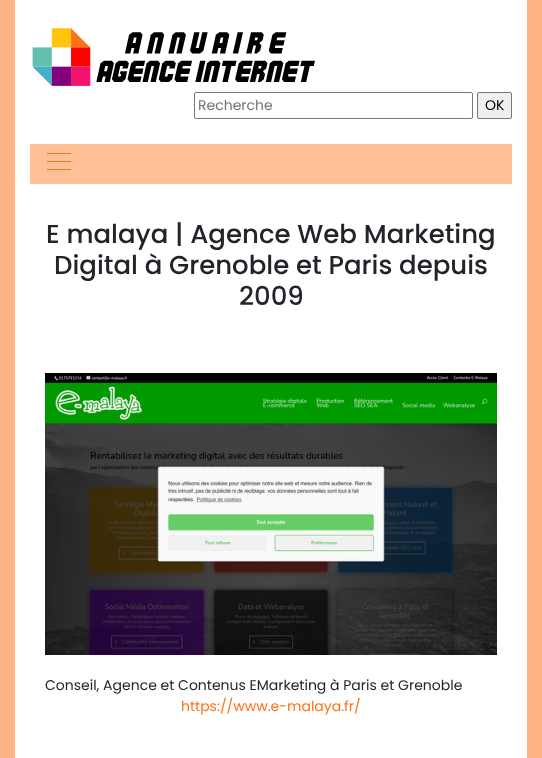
<!DOCTYPE html>
<meta charset="utf-8">
<style>body { margin: 0 } canvas { display: block }</style>
<canvas id="canvas" width="542" height="758"></canvas>
<img id="img1" src="images/1.png" hidden>
<img id="img2" src="images/2.png" hidden>
<script>
window.onload = function () {
    const canvas = document.getElementById('canvas');
    const context = canvas.getContext('2d');
    context.miterLimit = 4;
    context.fontKerning = 'normal';

    context.fillStyle = 'rgb(255, 181, 131)';
    context.fillRect(0, 0, 542, 758);
    context.fillStyle = 'rgb(255, 255, 255)';
    context.fillRect(15, 0, 512, 758);
    context.drawImage(document.getElementById('img1'), 32, 28, 283, 58);
    context.beginPath();
    context.roundRect(194.5, 92.5, 278, 26, 1.5);
    context.strokeStyle = 'rgb(118, 118, 118)';
    context.stroke();
    context.fillStyle = 'rgb(239, 239, 239)';
    context.beginPath();
    context.roundRect(477.5, 92.5, 34, 26, 1.5);
    context.fill();
    context.stroke();
    context.fillStyle = 'rgb(255, 192, 149)';
    context.fillRect(30, 144, 482, 40);
    context.fillStyle = 'rgb(254, 115, 21)';
    context.fillRect(47, 153, 24, 1);
    context.fillRect(47, 161, 24, 1);
    context.fillRect(47, 169, 24, 1);
    context.drawImage(document.getElementById('img2'), 45, 373, 452, 282);
    context.font = '14px Poppins';
    context.fillStyle = 'rgb(117, 117, 117)';
    context.fillText('Recherche', 198, 110);
    context.fillStyle = 'rgb(0, 0, 0)';
    context.fillText('OK', 485, 110);
    context.font = '500 26px Poppins';
    context.fillStyle = 'rgb(33, 37, 41)';
    context.fillText('E malaya | Agence Web Marketing', 46, 243);
    context.fillText('Digital à Grenoble et Paris depuis', 54, 274);
    context.fillText('2009', 239, 305);
    context.font = '14px Poppins';
    context.fillText('Conseil, Agence et Contenus EMarketing à Paris et Grenoble', 45, 690);
    context.fillStyle = 'rgb(254, 115, 21)';
    context.fillText('https://www.e-malaya.fr/', 181, 711);
};
</script>
